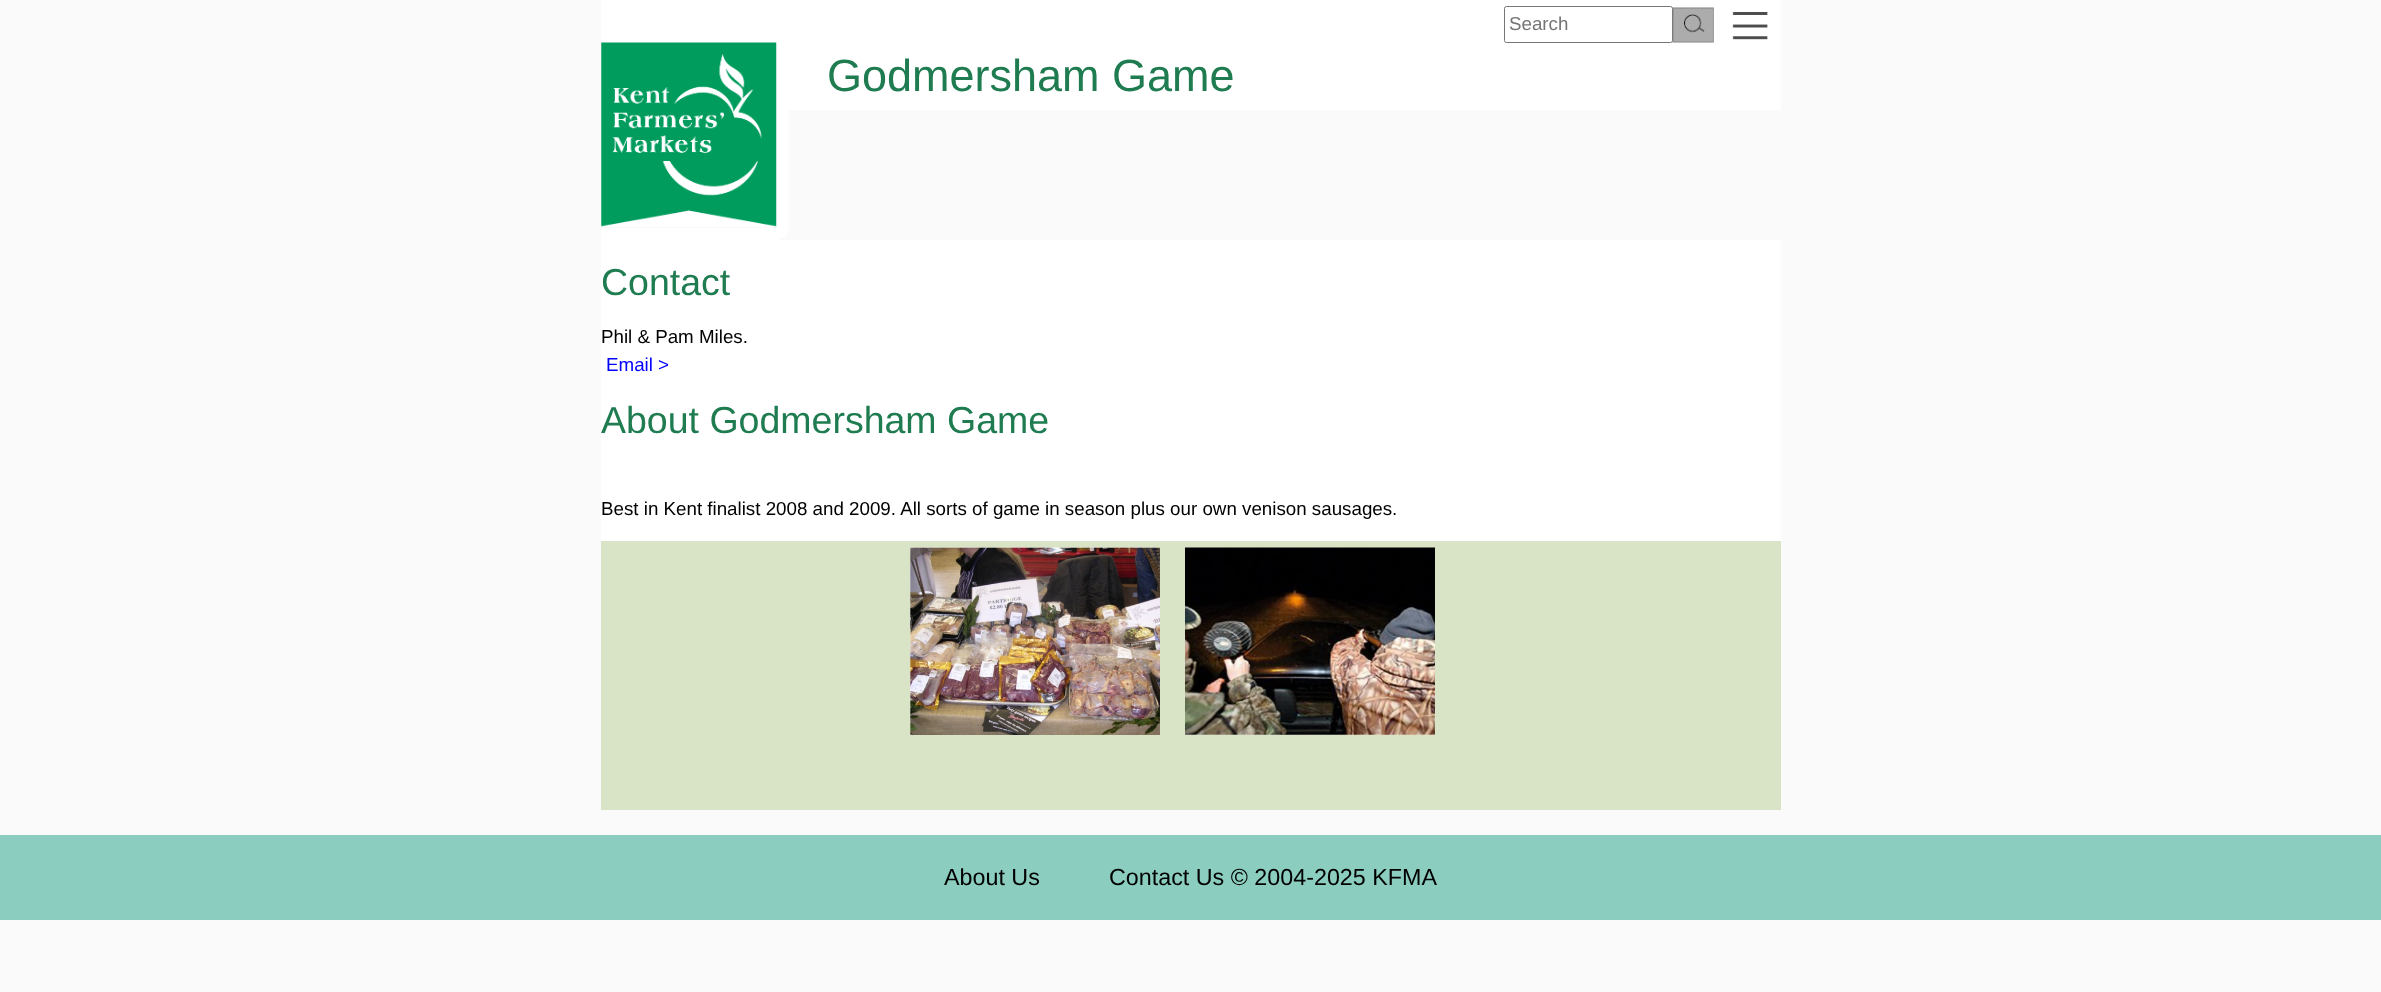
<!DOCTYPE html>
<meta charset="utf-8">
<style>body { margin: 0 } canvas { display: block }</style>
<canvas id="canvas" width="2381" height="992"></canvas>
<img id="img1" src="images/1.png" hidden>
<img id="img2" src="images/2.png" hidden>
<img id="img3" src="images/3.png" hidden>
<img id="img4" src="images/4.png" hidden>
<img id="img5" src="images/5.png" hidden>
<script>
window.onload = function () {
    const canvas = document.getElementById('canvas');
    const context = canvas.getContext('2d');
    context.miterLimit = 4;
    context.fontKerning = 'normal';

    context.fillStyle = 'rgb(250, 250, 250)';
    context.fillRect(0, 0, 2381, 992);
    context.fillStyle = 'rgb(255, 255, 255)';
    context.fillRect(601, 0, 1180, 110);
    context.beginPath();
    context.roundRect(1504.5, 6.5, 168, 36, 2);
    context.strokeStyle = 'rgb(118, 118, 118)';
    context.stroke();
    context.drawImage(document.getElementById('img1'), 1672, 7, 42, 36);
    context.drawImage(document.getElementById('img2'), 1732, 12, 36, 28);
    context.beginPath();
    context.moveTo(601, 42);
    context.lineTo(789, 42);
    context.lineTo(789, 228);
    context.bezierCurveTo(789, 234, 783, 240, 776, 240);
    context.lineTo(601, 240);
    context.closePath();
    context.moveTo(601, 42);
    context.lineTo(776, 42);
    context.lineTo(776, 228);
    context.lineTo(601, 228);
    context.closePath();
    context.fill('evenodd');
    context.drawImage(document.getElementById('img3'), 601, 42, 176, 185);
    context.fillRect(601, 240, 1180, 301);
    context.fillStyle = 'rgb(217, 227, 197)';
    context.fillRect(601, 541, 1180, 269);
    context.drawImage(document.getElementById('img4'), 910, 547, 250, 188);
    context.drawImage(document.getElementById('img5'), 1185, 547, 250, 188);
    context.fillStyle = 'rgb(139, 206, 191)';
    context.fillRect(0, 835, 2381, 85);
    context.font = '18.75px Liberation Sans';
    context.fillStyle = 'rgb(117, 117, 117)';
    context.fillText('Search', 1509, 30);
    context.font = '45px Liberation Sans';
    context.fillStyle = 'rgb(31, 124, 81)';
    context.fillText('Godmersham Game', 827, 91);
    context.font = '37.5px Liberation Sans';
    context.fillText('Contact', 601, 295);
    context.font = '18.75px Liberation Sans';
    context.fillStyle = 'rgb(0, 0, 0)';
    context.fillText('Phil & Pam Miles.', 601, 343);
    context.fillStyle = 'rgb(0, 0, 255)';
    context.fillText('Email >', 606, 371);
    context.font = '37.5px Liberation Sans';
    context.fillStyle = 'rgb(31, 124, 81)';
    context.fillText('About Godmersham Game', 601, 433);
    context.font = '18.75px Liberation Sans';
    context.fillStyle = 'rgb(0, 0, 0)';
    context.fillText('Best in Kent finalist 2008 and 2009. All sorts of game in season plus our own venison sausages.', 601, 515);
    context.font = '23.3px Liberation Sans';
    context.fillText('About Us', 944, 885);
    context.fillText('Contact Us © 2004-2025 KFMA', 1109, 885);
};
</script>
